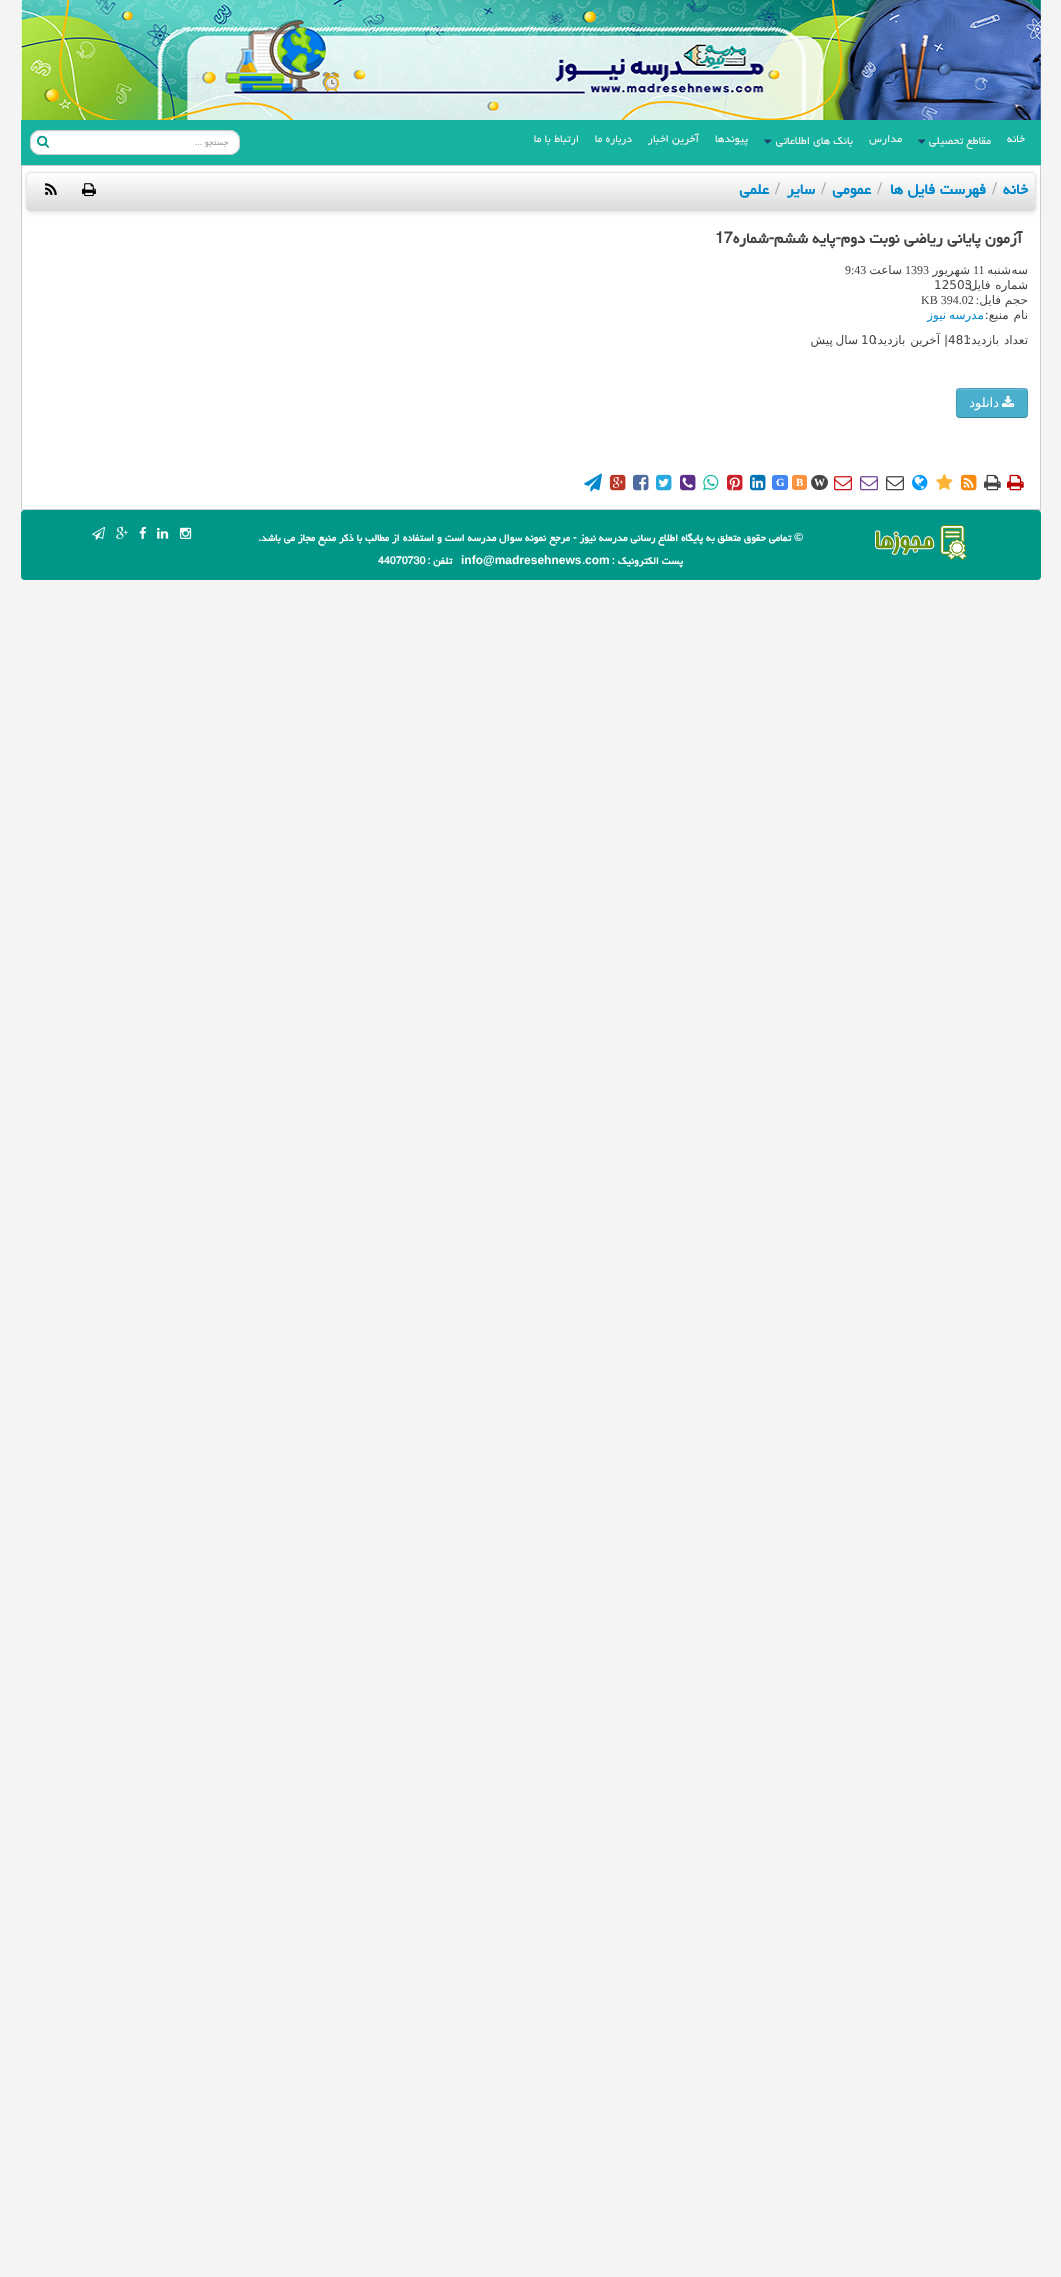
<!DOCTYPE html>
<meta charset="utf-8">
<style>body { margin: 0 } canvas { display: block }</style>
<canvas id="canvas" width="1061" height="2277"></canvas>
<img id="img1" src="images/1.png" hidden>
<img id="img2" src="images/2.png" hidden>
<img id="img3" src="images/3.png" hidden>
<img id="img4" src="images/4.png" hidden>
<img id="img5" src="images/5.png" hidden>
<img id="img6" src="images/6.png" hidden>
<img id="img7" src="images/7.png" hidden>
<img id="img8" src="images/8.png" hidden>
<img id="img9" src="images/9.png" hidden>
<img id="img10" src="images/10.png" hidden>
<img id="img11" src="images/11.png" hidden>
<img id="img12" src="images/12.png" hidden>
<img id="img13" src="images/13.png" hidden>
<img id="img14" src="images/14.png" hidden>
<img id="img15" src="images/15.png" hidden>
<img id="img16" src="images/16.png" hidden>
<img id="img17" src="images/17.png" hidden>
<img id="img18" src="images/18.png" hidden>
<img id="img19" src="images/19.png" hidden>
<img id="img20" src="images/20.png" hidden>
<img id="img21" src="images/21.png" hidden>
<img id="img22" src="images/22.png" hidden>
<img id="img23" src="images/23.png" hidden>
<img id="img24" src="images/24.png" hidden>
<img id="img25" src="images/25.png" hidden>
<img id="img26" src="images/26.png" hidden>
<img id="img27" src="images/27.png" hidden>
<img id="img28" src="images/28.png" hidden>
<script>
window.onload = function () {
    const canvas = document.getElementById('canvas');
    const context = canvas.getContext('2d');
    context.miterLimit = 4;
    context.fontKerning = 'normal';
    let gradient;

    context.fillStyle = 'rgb(244, 244, 244)';
    context.fillRect(0, 0, 1061, 2277);
    context.drawImage(document.getElementById('img1'), 21, 0, 1020, 120);
    context.fillStyle = 'rgb(23, 179, 161)';
    context.fillRect(21, 120, 1020, 45);
    context.drawImage(document.getElementById('img2'), 918, 139, 8, 5);
    context.drawImage(document.getElementById('img2'), 764, 139, 8, 5);
    context.fillStyle = 'rgb(255, 255, 255)';
    context.beginPath();
    context.roundRect(30, 130, 210, 25, 10);
    context.fill();
    context.fillStyle = 'rgb(236, 236, 236)';
    context.beginPath();
    context.moveTo(40, 132);
    context.lineTo(230, 132);
    context.bezierCurveTo(235, 132, 239, 136, 239, 141);
    context.lineTo(239, 140);
    context.bezierCurveTo(239, 135, 235, 131, 230, 131);
    context.lineTo(40, 131);
    context.bezierCurveTo(35, 131, 31, 135, 31, 140);
    context.lineTo(31, 141);
    context.bezierCurveTo(31, 136, 35, 132, 40, 132);
    context.closePath();
    context.fill();
    context.beginPath();
    context.roundRect(30.5, 130.5, 209, 24, 9.5);
    context.strokeStyle = 'rgb(204, 204, 204)';
    context.stroke();
    context.drawImage(document.getElementById('img3'), 37, 135, 12, 13);
    context.strokeRect(21.5, 165.5, 1019, 344);
    context.fillStyle = 'rgb(255, 255, 255)';
    context.fillRect(22, 166, 1018, 343);
    context.fillStyle = 'rgba(0, 0, 0, 0.1)';
    context.filter = 'blur(2.5px)';
    context.beginPath();
    context.roundRect(26, 173, 1010, 40, 5);
    context.fill();
    context.filter = 'none';
    context.save();
    context.beginPath();
    context.roundRect(26, 172, 1010, 40, 5);
    context.clip();
    gradient = context.createLinearGradient(531, 173, 531, 211);
    gradient.addColorStop(0, 'rgb(255, 255, 255)');
    gradient.addColorStop(1, 'rgb(218, 218, 218)');
    context.fillStyle = gradient;
    context.fillRect(26, 173, 1010, 38);
    context.restore();
    context.beginPath();
    context.roundRect(26.5, 172.5, 1009, 39, 4.5);
    context.strokeStyle = 'rgb(229, 229, 229)';
    context.stroke();
    context.drawImage(document.getElementById('img4'), 82, 183, 14, 14);
    context.drawImage(document.getElementById('img5'), 45, 183, 12, 12);
    context.fillStyle = 'rgba(0, 0, 0, 0.05)';
    context.filter = 'blur(1px)';
    context.beginPath();
    context.roundRect(956, 389, 72, 30, 4);
    context.fill();
    context.filter = 'none';
    context.fillStyle = 'rgb(73, 175, 205)';
    context.beginPath();
    context.roundRect(956, 388, 72, 30, 4);
    context.fill();
    context.fillStyle = 'rgb(109, 191, 215)';
    context.beginPath();
    context.moveTo(960, 390);
    context.lineTo(1024, 390);
    context.bezierCurveTo(1026, 390, 1027, 391, 1027, 393);
    context.bezierCurveTo(1027, 386, 1018, 389, 1013, 389);
    context.lineTo(971, 389);
    context.bezierCurveTo(966, 389, 957, 386, 957, 393);
    context.bezierCurveTo(957, 391, 958, 390, 960, 390);
    context.closePath();
    context.fill();
    context.beginPath();
    context.moveTo(1026.5, 416.5);
    context.lineTo(1024.5, 417.5);
    context.lineTo(959.5, 417.5);
    context.lineTo(957.5, 416.5);
    context.strokeStyle = 'rgba(0, 0, 0, 0.25)';
    context.stroke();
    context.beginPath();
    context.moveTo(957.5, 416.5);
    context.bezierCurveTo(955.5, 414.5, 956.5, 406, 956.5, 403);
    context.bezierCurveTo(956.5, 386.5, 954, 388.5, 970.5, 388.5);
    context.lineTo(1013.5, 388.5);
    context.bezierCurveTo(1030, 388.5, 1027.5, 386.5, 1027.5, 403);
    context.bezierCurveTo(1027.5, 406, 1028.5, 414.5, 1026.5, 416.5);
    context.strokeStyle = 'rgba(0, 0, 0, 0.1)';
    context.stroke();
    context.drawImage(document.getElementById('img6'), 1002, 395, 13, 12);
    context.drawImage(document.getElementById('img7'), 1007, 474, 17, 17);
    context.drawImage(document.getElementById('img8'), 984, 474, 17, 17);
    context.drawImage(document.getElementById('img9'), 961, 474, 16, 17);
    context.drawImage(document.getElementById('img10'), 936, 473, 17, 17);
    context.drawImage(document.getElementById('img11'), 912, 474, 16, 17);
    context.drawImage(document.getElementById('img12'), 886, 476, 18, 15);
    context.drawImage(document.getElementById('img13'), 860, 476, 18, 15);
    context.drawImage(document.getElementById('img14'), 834, 476, 18, 15);
    context.fillStyle = 'rgb(68, 68, 68)';
    context.beginPath();
    context.roundRect(811, 475, 17, 15, 7.5);
    context.fill();
    context.fillStyle = 'rgb(251, 147, 65)';
    context.beginPath();
    context.roundRect(792, 475, 15, 15, 3);
    context.fill();
    context.fillStyle = 'rgb(66, 133, 244)';
    context.beginPath();
    context.roundRect(772, 475, 16, 15, 3);
    context.fill();
    context.drawImage(document.getElementById('img15'), 750, 474, 16, 17);
    context.drawImage(document.getElementById('img16'), 727, 474, 16, 17);
    context.drawImage(document.getElementById('img17'), 703, 474, 16, 17);
    context.drawImage(document.getElementById('img18'), 680, 474, 16, 17);
    context.drawImage(document.getElementById('img19'), 656, 474, 16, 17);
    context.drawImage(document.getElementById('img20'), 633, 474, 16, 17);
    context.drawImage(document.getElementById('img21'), 610, 474, 16, 17);
    context.drawImage(document.getElementById('img22'), 584, 473, 18, 19);
    context.fillStyle = 'rgb(0, 151, 136)';
    context.beginPath();
    context.roundRect(21, 510, 1020, 70, 4);
    context.fill();
    context.drawImage(document.getElementById('img23'), 875, 525, 92, 35);
    context.drawImage(document.getElementById('img24'), 180, 527, 12, 12);
    context.drawImage(document.getElementById('img25'), 157, 527, 12, 12);
    context.drawImage(document.getElementById('img26'), 139, 526, 7, 13);
    context.drawImage(document.getElementById('img27'), 116, 526, 12, 13);
    context.drawImage(document.getElementById('img28'), 92, 526, 13, 14);
    context.direction = 'rtl';
    context.font = '13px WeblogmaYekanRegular';
    context.fillStyle = 'rgb(244, 244, 244)';
    context.fillText('خانه', 1025, 142);
    context.fillText('مقاطع تحصیلی', 991, 144);
    context.fillText('مدارس', 902, 142);
    context.fillText('بانک های اطلاعاتی', 853, 144);
    context.fillText('پیوندها', 748, 142);
    context.fillText('آخرین اخبار', 699, 142);
    context.fillText('درباره ما', 632, 142);
    context.fillText('ارتباط با ما', 579, 142);
    context.font = '10px WeblogmaYekanRegular';
    context.fillStyle = 'rgb(153, 153, 153)';
    context.fillText('جستجو ...', 228, 145);
    context.font = 'bold 18px WeblogmaYekanRegular';
    context.fillStyle = 'rgb(0, 136, 204)';
    context.fillText('خانه', 1028, 194);
    context.direction = 'ltr';
    context.font = 'bold 18px Liberation Serif';
    context.fillStyle = 'rgb(170, 170, 170)';
    context.fillText('/', 992, 194);
    context.direction = 'rtl';
    context.font = 'bold 18px WeblogmaYekanRegular';
    context.fillStyle = 'rgb(0, 136, 204)';
    context.fillText('فهرست فایل ها', 986, 194);
    context.direction = 'ltr';
    context.font = 'bold 18px Liberation Serif';
    context.fillStyle = 'rgb(170, 170, 170)';
    context.fillText('/', 877, 194);
    context.direction = 'rtl';
    context.font = 'bold 18px WeblogmaYekanRegular';
    context.fillStyle = 'rgb(0, 136, 204)';
    context.fillText('عمومی', 871, 194);
    context.direction = 'ltr';
    context.font = 'bold 18px Liberation Serif';
    context.fillStyle = 'rgb(170, 170, 170)';
    context.fillText('/', 821, 194);
    context.direction = 'rtl';
    context.font = 'bold 18px WeblogmaYekanRegular';
    context.fillStyle = 'rgb(0, 136, 204)';
    context.fillText('سایر', 815, 194);
    context.direction = 'ltr';
    context.font = 'bold 18px Liberation Serif';
    context.fillStyle = 'rgb(170, 170, 170)';
    context.fillText('/', 775, 194);
    context.direction = 'rtl';
    context.font = 'bold 18px WeblogmaYekanRegular';
    context.fillStyle = 'rgb(0, 136, 204)';
    context.fillText('علمی', 769, 194);
    context.fillStyle = 'rgb(68, 68, 68)';
    context.fillText('آزمون پایانی ریاضی نوبت دوم-پایه ششم-شماره', 1022, 243);
    context.direction = 'ltr';
    context.fillText('17', 715, 243);
    context.direction = 'rtl';
    context.font = '12px DejaVu Sans';
    context.fillText('سه', 1028, 274);
    context.fillText('شنبه', 1011, 274);
    context.direction = 'ltr';
    context.font = '12px Liberation Serif';
    context.fillText('11', 973, 274);
    context.direction = 'rtl';
    context.font = '12px DejaVu Sans';
    context.fillText('شهریور', 970, 274);
    context.direction = 'ltr';
    context.font = '12px Liberation Serif';
    context.fillText('1393', 905, 274);
    context.direction = 'rtl';
    context.font = '12px DejaVu Sans';
    context.fillText('ساعت', 902, 274);
    context.direction = 'ltr';
    context.font = '12px Liberation Serif';
    context.fillText('9:43', 845, 274);
    context.font = '12px DejaVu Sans';
    context.fillText('12503', 934, 289);
    context.wordSpacing = '1px';
    context.direction = 'rtl';
    context.fillText('شماره فایل:', 1028, 289);
    context.wordSpacing = '0px';
    context.fillText('حجم فایل', 1028, 304);
    context.font = '12px Liberation Serif';
    context.fillText(':', 979, 304);
    context.direction = 'ltr';
    context.fillText('KB 394.02', 921, 304);
    context.wordSpacing = '1px';
    context.direction = 'rtl';
    context.font = '12px DejaVu Sans';
    context.fillText('نام منبع:', 1028, 319);
    context.wordSpacing = '-1px';
    context.fillStyle = 'rgb(0, 136, 204)';
    context.fillText('مدرسه نیوز', 984, 319);
    context.wordSpacing = '0px';
    context.direction = 'ltr';
    context.fillStyle = 'rgb(68, 68, 68)';
    context.fillText('|481', 944, 344);
    context.wordSpacing = '1px';
    context.direction = 'rtl';
    context.fillText('تعداد بازدید:', 1028, 344);
    context.fillText('آخرین بازدید:', 940, 344);
    context.wordSpacing = '0px';
    context.direction = 'ltr';
    context.fillText('10', 861, 344);
    context.wordSpacing = '-1px';
    context.direction = 'rtl';
    context.fillText('سال پیش', 858, 344);
    context.wordSpacing = '0px';
    context.font = '13px DejaVu Sans';
    context.fillStyle = 'rgb(255, 255, 255)';
    context.fillText('دانلود', 999, 407);
    context.direction = 'ltr';
    context.font = 'bold 11px Liberation Serif';
    context.fillText('W', 814, 486);
    context.fillText('B', 796, 486);
    context.fillText('G', 776, 486);
    context.direction = 'rtl';
    context.font = 'bold 12px Liberation Sans';
    context.fillText('©', 803, 541);
    context.font = 'bold 12px WeblogmaYekanRegular';
    context.fillText('تمامی حقوق متعلق به پایگاه اطلاع رسانی مدرسه نیوز - مرجع نمونه سوال مدرسه است و استفاده از مطالب با ذکر منبع مجاز می باشد.', 791, 541);
    context.fillText('پست الکترونيک :', 683, 564);
    context.direction = 'ltr';
    context.font = 'bold 12px Liberation Sans';
    context.fillText('com', 585, 564);
    context.font = 'bold 12px WeblogmaYekanRegular';
    context.fillText('.', 582, 564);
    context.font = 'bold 12px Liberation Sans';
    context.fillText('info@madresehnews', 461, 564);
    context.direction = 'rtl';
    context.font = 'bold 12px WeblogmaYekanRegular';
    context.fillText('تلفن :', 452, 564);
    context.direction = 'ltr';
    context.fillText('44070730', 378, 564);
};
</script>
